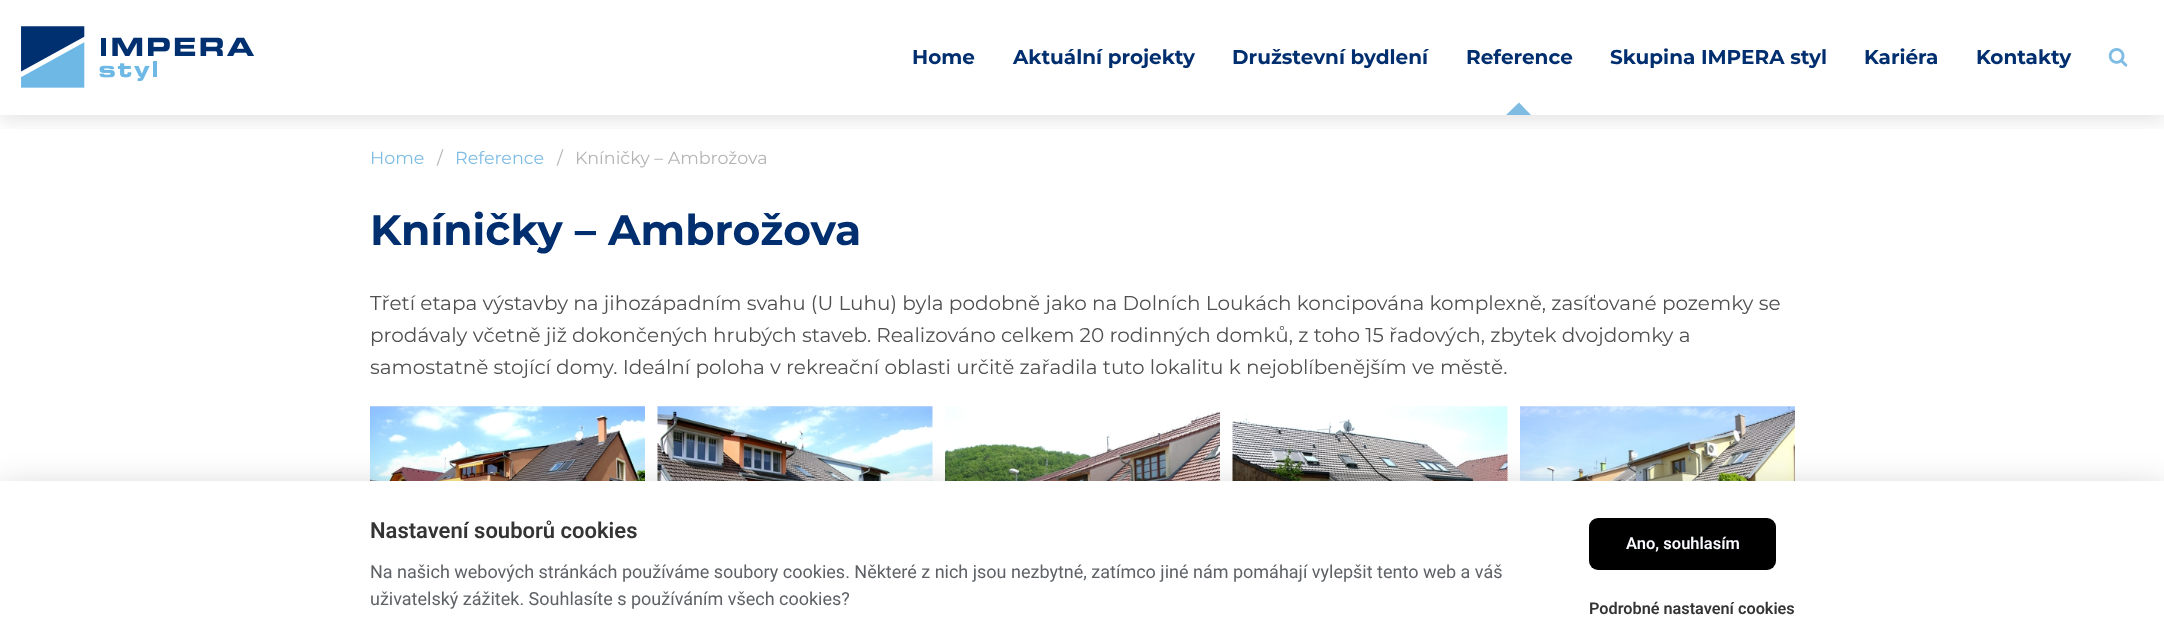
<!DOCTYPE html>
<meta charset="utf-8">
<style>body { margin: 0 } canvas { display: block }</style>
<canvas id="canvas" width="2164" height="644"></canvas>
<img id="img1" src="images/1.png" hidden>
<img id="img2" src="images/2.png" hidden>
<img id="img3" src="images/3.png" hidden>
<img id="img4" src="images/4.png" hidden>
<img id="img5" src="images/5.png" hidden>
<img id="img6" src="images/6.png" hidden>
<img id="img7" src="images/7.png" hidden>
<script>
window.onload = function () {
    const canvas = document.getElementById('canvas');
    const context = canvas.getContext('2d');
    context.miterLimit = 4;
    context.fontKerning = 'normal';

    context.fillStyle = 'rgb(255, 255, 255)';
    context.fillRect(0, 0, 2164, 644);
    context.save();
    context.beginPath();
    context.rect(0, 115, 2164, 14);
    context.clip();
    context.fillStyle = 'rgba(0, 0, 0, 0.1)';
    context.filter = 'blur(9.5px)';
    context.beginPath();
    context.rect(0, 6, 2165, 115);
    context.fill();
    context.filter = 'none';
    context.restore();
    context.drawImage(document.getElementById('img1'), 21, 26, 233, 62);
    context.fillStyle = 'rgb(127, 188, 227)';
    context.beginPath();
    context.moveTo(1531, 115);
    context.lineTo(1506, 115);
    context.lineTo(1519, 102.5);
    context.closePath();
    context.fill();
    context.drawImage(document.getElementById('img2'), 2108, 48, 20, 19);
    context.drawImage(document.getElementById('img3'), 370, 406, 275, 75);
    context.drawImage(document.getElementById('img4'), 657, 406, 276, 75);
    context.drawImage(document.getElementById('img5'), 945, 406, 275, 75);
    context.drawImage(document.getElementById('img6'), 1232, 406, 276, 75);
    context.drawImage(document.getElementById('img7'), 1520, 406, 275, 75);
    context.fillStyle = 'rgba(2, 2, 3, 0.28)';
    context.filter = 'blur(19px)';
    context.beginPath();
    context.rect(0, 494, 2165, 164);
    context.fill();
    context.filter = 'none';
    context.fillStyle = 'rgb(255, 255, 255)';
    context.fillRect(0, 481, 2164, 163);
    context.fillStyle = 'rgb(0, 0, 0)';
    context.beginPath();
    context.roundRect(1589, 518, 187, 52, 9);
    context.fill();
    context.font = 'bold 20px Montserrat';
    context.fillStyle = 'rgb(0, 46, 110)';
    context.fillText('Home', 912, 64);
    context.fillText('Aktuální projekty', 1013, 64);
    context.fillText('Družstevní bydlení', 1232, 64);
    context.fillText('Reference', 1466, 64);
    context.fillText('Skupina IMPERA styl', 1610, 64);
    context.fillText('Kariéra', 1864, 64);
    context.fillText('Kontakty', 1976, 64);
    context.font = '17.5px Montserrat';
    context.fillStyle = 'rgb(127, 188, 227)';
    context.fillText('Home', 370, 164);
    context.fillStyle = 'rgb(180, 180, 180)';
    context.fillText('/', 437, 164);
    context.fillStyle = 'rgb(127, 188, 227)';
    context.fillText('Reference', 455, 164);
    context.fillStyle = 'rgb(180, 180, 180)';
    context.fillText('/', 557, 164);
    context.fillText('Kníničky – Ambrožova', 575, 164);
    context.font = 'bold 42.5px Montserrat';
    context.fillStyle = 'rgb(0, 46, 110)';
    context.fillText('Kníničky – Ambrožova', 370, 245);
    context.font = '20px Montserrat';
    context.fillStyle = 'rgb(80, 80, 80)';
    context.fillText('Třetí etapa výstavby na jihozápadním svahu (U Luhu) byla podobně jako na Dolních Loukách koncipována komplexně, zasíťované pozemky se', 370, 310);
    context.fillText('prodávaly včetně již dokončených hrubých staveb. Realizováno celkem 20 rodinných domků, z toho 15 řadových, zbytek dvojdomky a', 370, 342);
    context.fillText('samostatně stojící domy. Ideální poloha v rekreační oblasti určitě zařadila tuto lokalitu k nejoblíbenějším ve městě.', 370, 374);
    context.font = '600 22px Roboto';
    context.fillStyle = 'rgb(52, 52, 52)';
    context.fillText('Nastavení souborů cookies', 370, 538);
    context.font = '18px Roboto';
    context.fillStyle = 'rgb(94, 98, 102)';
    context.fillText('Na našich webových stránkách používáme soubory cookies. Některé z nich jsou nezbytné, zatímco jiné nám pomáhají vylepšit tento web a váš', 370, 578);
    context.fillText('uživatelský zážitek. Souhlasíte s používáním všech cookies?', 370, 605);
    context.font = '600 16.5px Roboto';
    context.fillStyle = 'rgb(249, 250, 255)';
    context.fillText('Ano, souhlasím', 1626, 549);
    context.font = '600 16.25px Roboto';
    context.fillStyle = 'rgb(52, 52, 52)';
    context.fillText('Podrobné nastavení cookies', 1589, 614);
};
</script>
